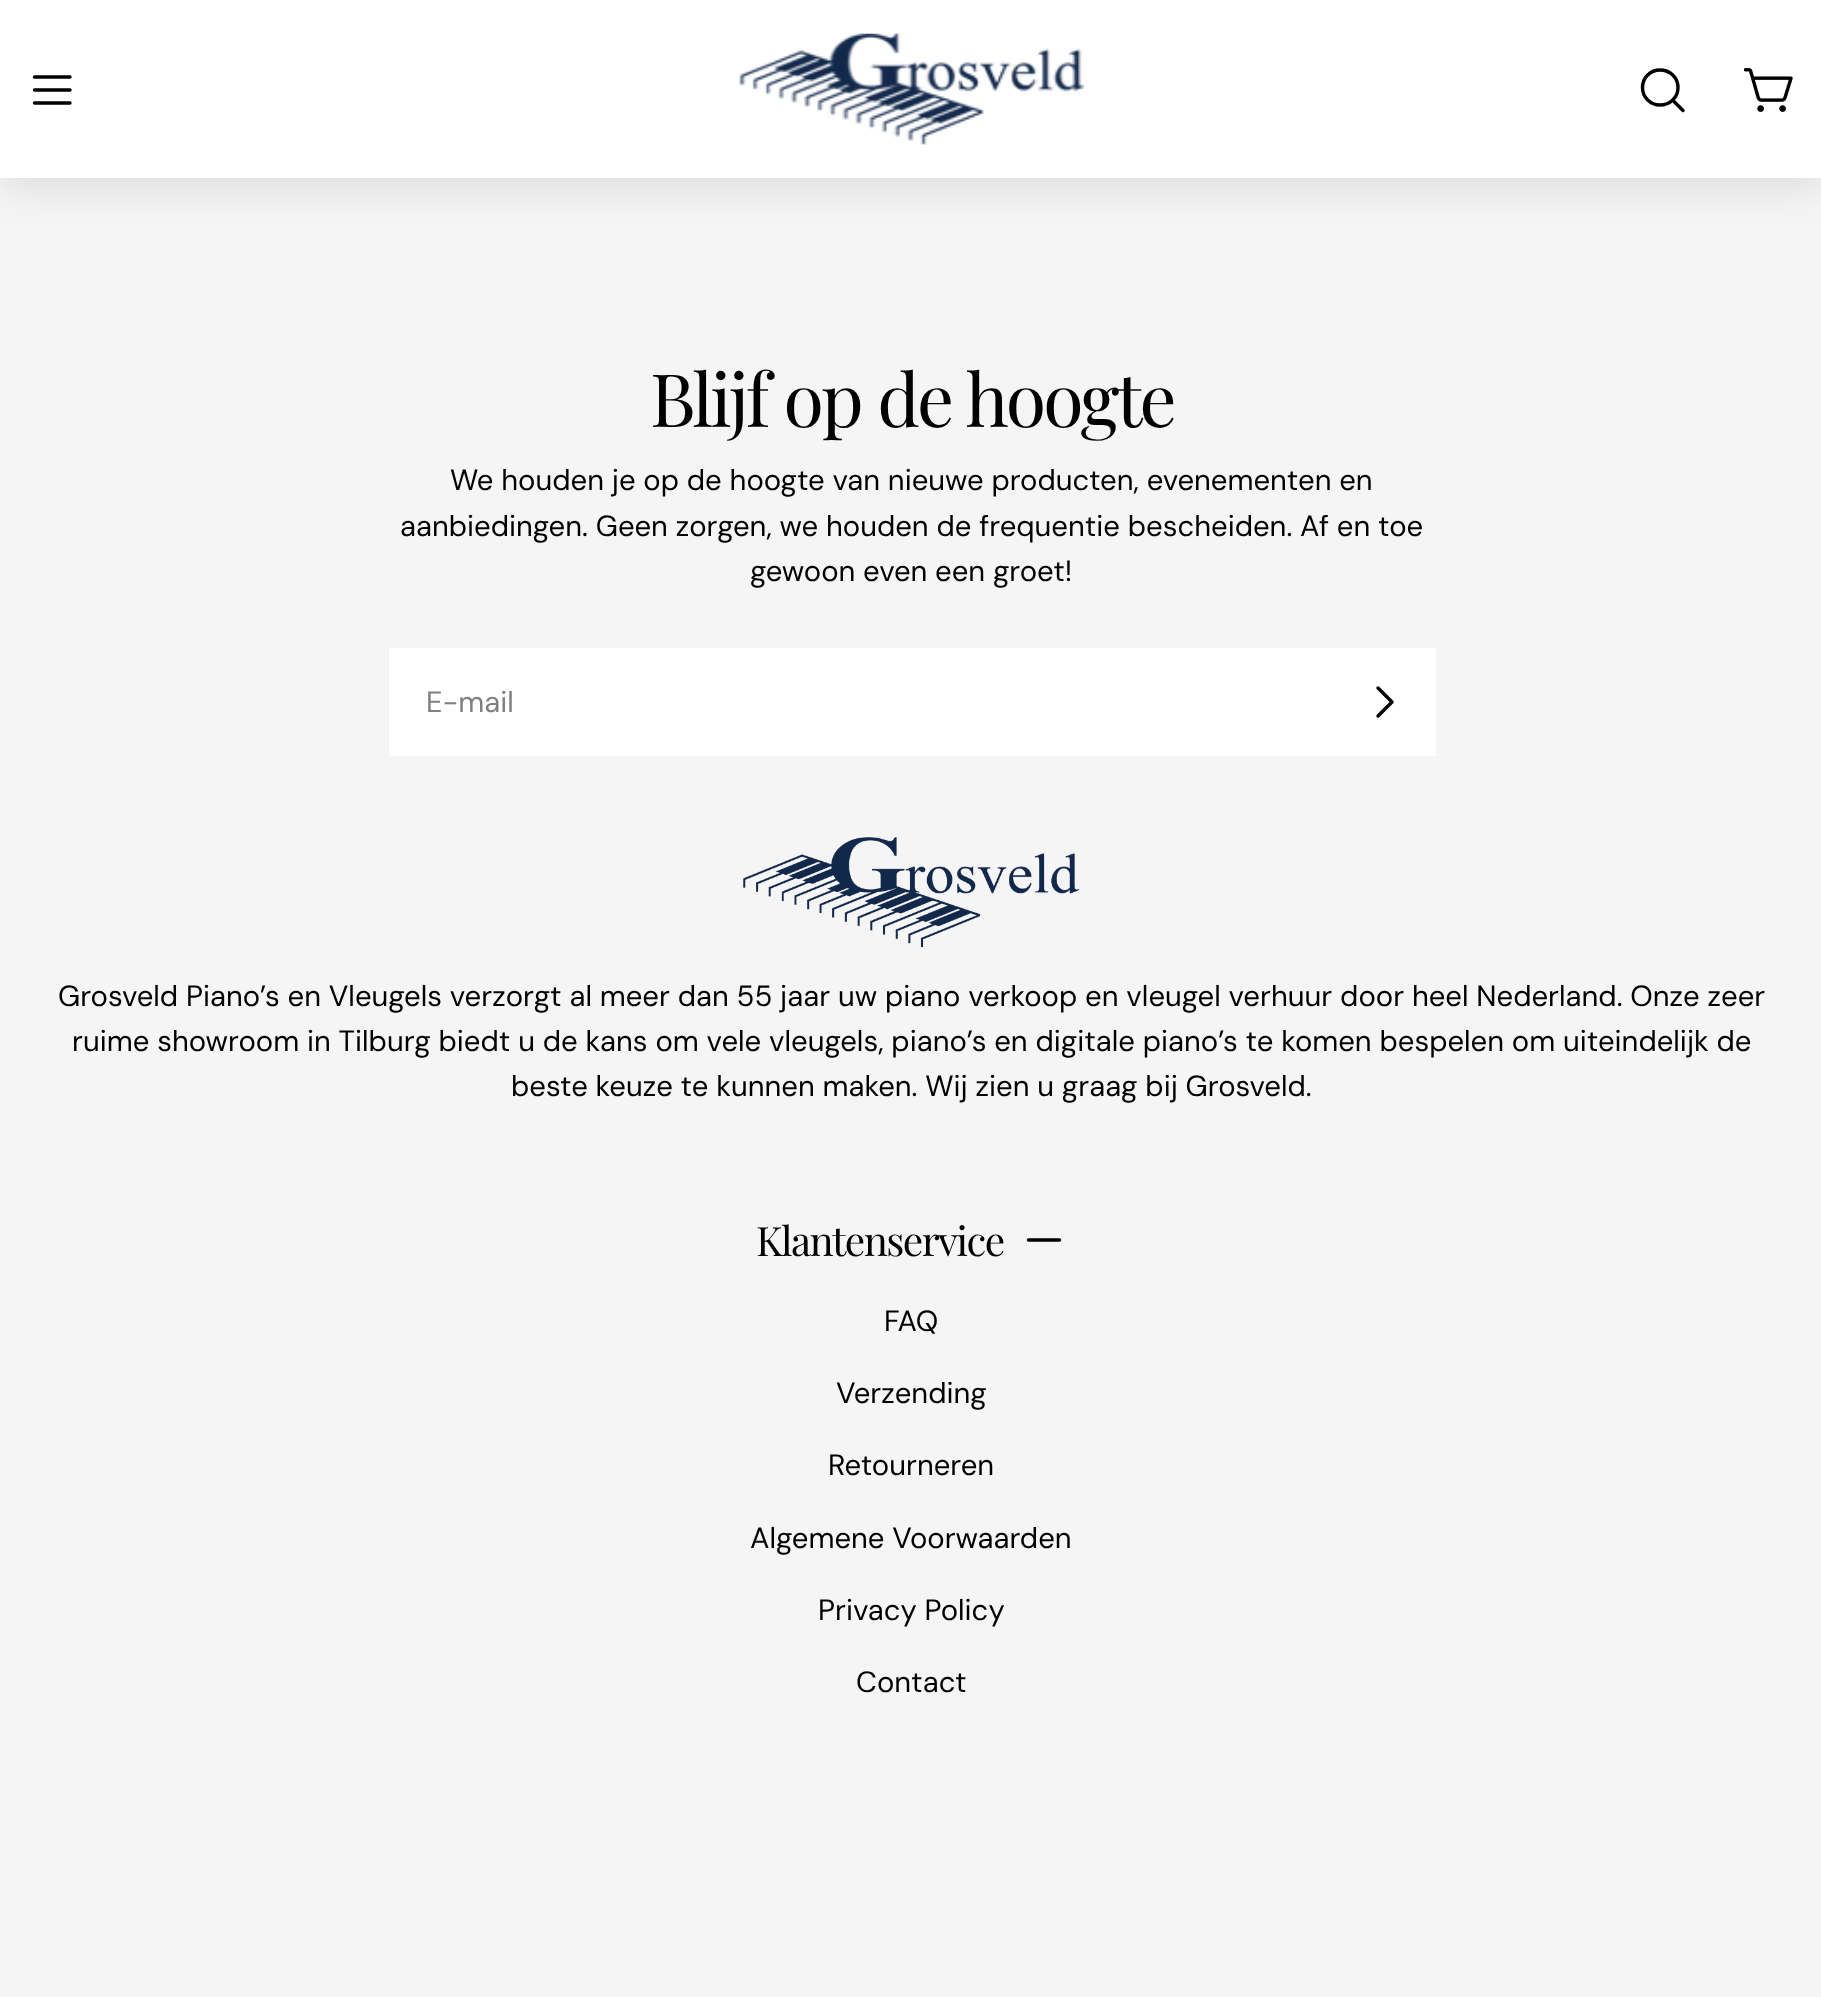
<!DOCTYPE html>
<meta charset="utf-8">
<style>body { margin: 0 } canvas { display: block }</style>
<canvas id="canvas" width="1821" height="1997"></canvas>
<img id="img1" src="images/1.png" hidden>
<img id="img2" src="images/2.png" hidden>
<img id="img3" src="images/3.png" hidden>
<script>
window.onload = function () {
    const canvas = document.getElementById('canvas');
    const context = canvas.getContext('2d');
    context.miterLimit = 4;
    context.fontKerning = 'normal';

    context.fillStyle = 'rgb(245, 245, 245)';
    context.fillRect(0, 0, 1821, 1997);
    context.fillStyle = 'rgba(0, 0, 0, 0.1)';
    context.filter = 'blur(20px)';
    context.beginPath();
    context.rect(0, 9, 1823, 178);
    context.fill();
    context.filter = 'none';
    context.fillStyle = 'rgb(255, 255, 255)';
    context.fillRect(0, 0, 1821, 178);
    context.beginPath();
    context.moveTo(34.5, 90);
    context.lineTo(70, 90);
    context.moveTo(34.5, 77);
    context.lineTo(70, 77);
    context.moveTo(34.5, 103);
    context.lineTo(70, 103);
    context.strokeStyle = 'rgb(0, 0, 0)';
    context.lineWidth = 3.4;
    context.lineCap = 'round';
    context.lineJoin = 'round';
    context.stroke();
    context.drawImage(document.getElementById('img1'), 739, 33, 346, 112);
    context.beginPath();
    context.moveTo(1660, 105);
    context.bezierCurveTo(1670, 105, 1678, 97.5, 1678, 87.5);
    context.bezierCurveTo(1678, 77.5, 1670, 70, 1660, 70);
    context.bezierCurveTo(1650.5, 70, 1642.5, 77.5, 1642.5, 87.5);
    context.bezierCurveTo(1642.5, 97.5, 1650.5, 105, 1660, 105);
    context.closePath();
    context.moveTo(1672.5, 100);
    context.lineTo(1683, 110.5);
    context.stroke();
    context.drawImage(document.getElementById('img2'), 1744, 68, 49, 44);
    context.fillRect(389, 648, 1047, 108);
    context.beginPath();
    context.moveTo(1378, 688);
    context.lineTo(1392, 702);
    context.lineTo(1378, 716);
    context.stroke();
    context.drawImage(document.getElementById('img3'), 743, 837, 337, 111);
    context.beginPath();
    context.moveTo(1028.5, 1240);
    context.lineTo(1059.5, 1240);
    context.moveTo(1028.5, 1240);
    context.lineTo(1059.5, 1240);
    context.stroke();
    context.letterSpacing = '-2.9px';
    context.wordSpacing = '1px';
    context.font = '73.5px Playfair Display';
    context.fillStyle = 'rgb(0, 0, 0)';
    context.fillText('Blijf op de hoogte', 650, 427);
    context.letterSpacing = '0px';
    context.wordSpacing = '0px';
    context.font = '29.25px DM Sans';
    context.fillText('We houden je op de hoogte van nieuwe producten, evenementen en', 450, 490);
    context.fillText('aanbiedingen. Geen zorgen, we houden de frequentie bescheiden. Af en toe', 400, 536);
    context.fillText('gewoon even een groet!', 750, 581);
    context.fillStyle = 'rgb(128, 128, 128)';
    context.fillText('E-mail', 426, 712);
    context.fillStyle = 'rgb(0, 0, 0)';
    context.fillText('Grosveld Piano’s en Vleugels verzorgt al meer dan 55 jaar uw piano verkoop en vleugel verhuur door heel Nederland. Onze zeer', 58, 1006);
    context.fillText('ruime showroom in Tilburg biedt u de kans om vele vleugels, piano’s en digitale piano’s te komen bespelen om uiteindelijk de', 72, 1051);
    context.fillText('beste keuze te kunnen maken. Wij zien u graag bij Grosveld.', 511, 1096);
    context.letterSpacing = '-1.6px';
    context.font = '40.5px Playfair Display';
    context.fillText('Klantenservice', 756, 1256);
    context.letterSpacing = '0px';
    context.font = '29.25px DM Sans';
    context.fillText('FAQ', 884, 1331);
    context.fillText('Verzending', 836, 1403);
    context.fillText('Retourneren', 828, 1475);
    context.fillText('Algemene Voorwaarden', 750, 1548);
    context.fillText('Privacy Policy', 818, 1620);
    context.fillText('Contact', 856, 1692);
};
</script>
